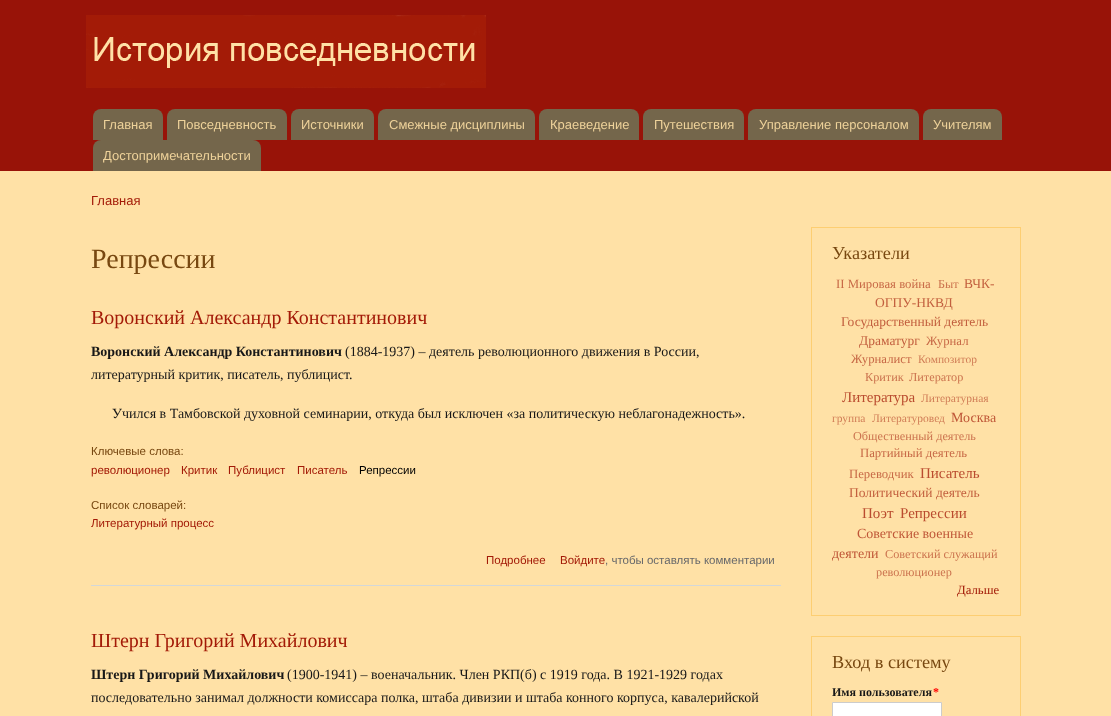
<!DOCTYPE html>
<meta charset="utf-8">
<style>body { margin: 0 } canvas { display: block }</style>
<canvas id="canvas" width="1111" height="716"></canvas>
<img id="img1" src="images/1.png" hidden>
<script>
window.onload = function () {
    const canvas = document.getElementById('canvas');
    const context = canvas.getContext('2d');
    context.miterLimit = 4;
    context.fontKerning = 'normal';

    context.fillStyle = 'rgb(255, 225, 166)';
    context.fillRect(0, 0, 1111, 716);
    context.fillStyle = 'rgb(152, 19, 8)';
    context.fillRect(0, 0, 1111, 171);
    context.drawImage(document.getElementById('img1'), 86, 15, 400, 73);
    context.fillStyle = 'rgb(116, 102, 75)';
    context.beginPath();
    context.roundRect(93, 109, 70, 31, [8, 8, 0, 0]);
    context.fill();
    context.beginPath();
    context.roundRect(167, 109, 120, 31, [8, 8, 0, 0]);
    context.fill();
    context.beginPath();
    context.roundRect(291, 109, 83, 31, [8, 8, 0, 0]);
    context.fill();
    context.beginPath();
    context.roundRect(378, 109, 157, 31, [8, 8, 0, 0]);
    context.fill();
    context.beginPath();
    context.roundRect(539, 109, 100, 31, [8, 8, 0, 0]);
    context.fill();
    context.beginPath();
    context.roundRect(643, 109, 101, 31, [8, 8, 0, 0]);
    context.fill();
    context.beginPath();
    context.roundRect(748, 109, 171, 31, [8, 8, 0, 0]);
    context.fill();
    context.beginPath();
    context.roundRect(923, 109, 79, 31, [8, 8, 0, 0]);
    context.fill();
    context.beginPath();
    context.roundRect(93, 140, 168, 31, [8, 8, 0, 0]);
    context.fill();
    context.fillStyle = 'rgb(211, 215, 217)';
    context.fillRect(91, 585, 690, 1);
    context.strokeStyle = 'rgb(253, 206, 114)';
    context.strokeRect(811.5, 227.5, 209, 388);
    context.strokeRect(811.5, 636.5, 209, 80);
    context.fillStyle = 'rgb(255, 255, 255)';
    context.beginPath();
    context.rect(832.5, 702.5, 109, 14);
    context.fill();
    context.strokeStyle = 'rgb(204, 204, 204)';
    context.stroke();
    context.font = '13px Liberation Sans';
    context.fillStyle = 'rgb(238, 210, 154)';
    context.fillText('Главная', 103, 129);
    context.fillText('Повседневность', 177, 129);
    context.fillText('Источники', 301, 129);
    context.fillText('Смежные дисциплины', 389, 129);
    context.fillText('Краеведение', 550, 129);
    context.fillText('Путешествия', 654, 129);
    context.fillText('Управление персоналом', 759, 129);
    context.fillText('Учителям', 933, 129);
    context.fillText('Достопримечательности', 103, 160);
    context.fillStyle = 'rgb(163, 26, 7)';
    context.fillText('Главная', 91, 205);
    context.font = '28px Liberation Serif';
    context.fillStyle = 'rgb(120, 72, 17)';
    context.fillText('Репрессии', 91, 268);
    context.font = '20px Liberation Serif';
    context.fillStyle = 'rgb(163, 26, 7)';
    context.fillText('Воронский Александр Константинович', 91, 324);
    context.font = 'bold 14px Liberation Serif';
    context.fillStyle = 'rgb(24, 24, 24)';
    context.fillText('Воронский Александр Константинович', 91, 356);
    context.font = '14px Liberation Serif';
    context.fillText('(1884-1937) – деятель революционного движения в России,', 345, 356);
    context.fillText('литературный критик, писатель, публицист.', 91, 379);
    context.fillText('Учился в Тамбовской духовной семинарии, откуда был исключен «за политическую неблагонадежность».', 112, 418);
    context.font = '11.5px Liberation Sans';
    context.fillStyle = 'rgb(120, 72, 17)';
    context.fillText('Ключевые слова:', 91, 455);
    context.fillStyle = 'rgb(163, 26, 7)';
    context.fillText('революционер', 91, 474);
    context.fillText('Критик', 181, 474);
    context.fillText('Публицист', 228, 474);
    context.fillText('Писатель', 297, 474);
    context.fillStyle = 'rgb(0, 0, 0)';
    context.fillText('Репрессии', 359, 474);
    context.fillStyle = 'rgb(120, 72, 17)';
    context.fillText('Список словарей:', 91, 509);
    context.fillStyle = 'rgb(163, 26, 7)';
    context.fillText('Литературный процесс', 91, 527);
    context.fillText('Подробнее', 486, 564);
    context.fillText('Войдите', 560, 564);
    context.fillStyle = 'rgb(104, 105, 107)';
    context.fillText(', чтобы оставлять комментарии', 605, 564);
    context.font = '20px Liberation Serif';
    context.fillStyle = 'rgb(163, 26, 7)';
    context.fillText('Штерн Григорий Михайлович', 91, 647);
    context.font = 'bold 14px Liberation Serif';
    context.fillStyle = 'rgb(24, 24, 24)';
    context.fillText('Штерн Григорий Михайлович', 91, 679);
    context.font = '14px Liberation Serif';
    context.fillText('(1900-1941) – военачальник. Член РКП(б) с 1919 года. В 1921-1929 годах', 287, 679);
    context.fillText('последовательно занимал должности комиссара полка, штаба дивизии и штаба конного корпуса, кавалерийской', 91, 702);
    context.font = '18.25px Liberation Serif';
    context.fillStyle = 'rgb(120, 72, 17)';
    context.fillText('Указатели', 832, 259);
    context.font = '12.75px Liberation Serif';
    context.fillStyle = 'rgb(200, 106, 71)';
    context.fillText('II Мировая война', 836, 288);
    context.font = '12.25px Liberation Serif';
    context.fillStyle = 'rgb(204, 116, 79)';
    context.fillText('Быт', 938, 288);
    context.font = '13.5px Liberation Serif';
    context.fillStyle = 'rgb(195, 96, 63)';
    context.fillText('ВЧК-', 964, 288);
    context.fillText('ОГПУ-НКВД', 875, 307);
    context.fillText('Государственный деятель', 841, 326);
    context.fillText('Драматург', 859, 345);
    context.font = '12.75px Liberation Serif';
    context.fillStyle = 'rgb(200, 106, 71)';
    context.fillText('Журнал', 926, 345);
    context.fillText('Журналист', 851, 363);
    context.font = '11.5px Liberation Serif';
    context.fillStyle = 'rgb(209, 126, 87)';
    context.fillText('Композитор', 918, 363);
    context.font = '12.25px Liberation Serif';
    context.fillStyle = 'rgb(204, 116, 79)';
    context.fillText('Критик', 865, 381);
    context.fillText('Литератор', 909, 381);
    context.font = '15px Liberation Serif';
    context.fillStyle = 'rgb(186, 76, 47)';
    context.fillText('Литература', 842, 402);
    context.font = '11.5px Liberation Serif';
    context.fillStyle = 'rgb(209, 126, 87)';
    context.fillText('Литературная', 921, 402);
    context.fillText('группа', 832, 422);
    context.fillText('Литературовед', 872, 422);
    context.font = '14px Liberation Serif';
    context.fillStyle = 'rgb(191, 86, 55)';
    context.fillText('Москва', 951, 422);
    context.font = '12.25px Liberation Serif';
    context.fillStyle = 'rgb(204, 116, 79)';
    context.fillText('Общественный деятель', 853, 440);
    context.font = '12.75px Liberation Serif';
    context.fillStyle = 'rgb(200, 106, 71)';
    context.fillText('Партийный деятель', 860, 457);
    context.fillText('Переводчик', 849, 478);
    context.font = '15px Liberation Serif';
    context.fillStyle = 'rgb(186, 76, 47)';
    context.fillText('Писатель', 920, 478);
    context.font = '13.5px Liberation Serif';
    context.fillStyle = 'rgb(195, 96, 63)';
    context.fillText('Политический деятель', 849, 497);
    context.font = '15px Liberation Serif';
    context.fillStyle = 'rgb(186, 76, 47)';
    context.fillText('Поэт', 862, 518);
    context.fillText('Репрессии', 900, 518);
    context.font = '14px Liberation Serif';
    context.fillStyle = 'rgb(191, 86, 55)';
    context.fillText('Советские военные', 857, 538);
    context.fillText('деятели', 832, 558);
    context.font = '12.25px Liberation Serif';
    context.fillStyle = 'rgb(204, 116, 79)';
    context.fillText('Советский служащий', 885, 558);
    context.fillText('революционер', 876, 576);
    context.font = '12.75px Liberation Serif';
    context.fillStyle = 'rgb(163, 26, 7)';
    context.fillText('Дальше', 957, 594);
    context.font = '18.25px Liberation Serif';
    context.fillStyle = 'rgb(120, 72, 17)';
    context.fillText('Вход в систему', 832, 668);
    context.font = 'bold 12px Liberation Serif';
    context.fillStyle = 'rgb(24, 24, 24)';
    context.fillText('Имя пользователя', 832, 696);
    context.fillStyle = 'rgb(255, 0, 0)';
    context.fillText('*', 933, 696);
};
</script>
